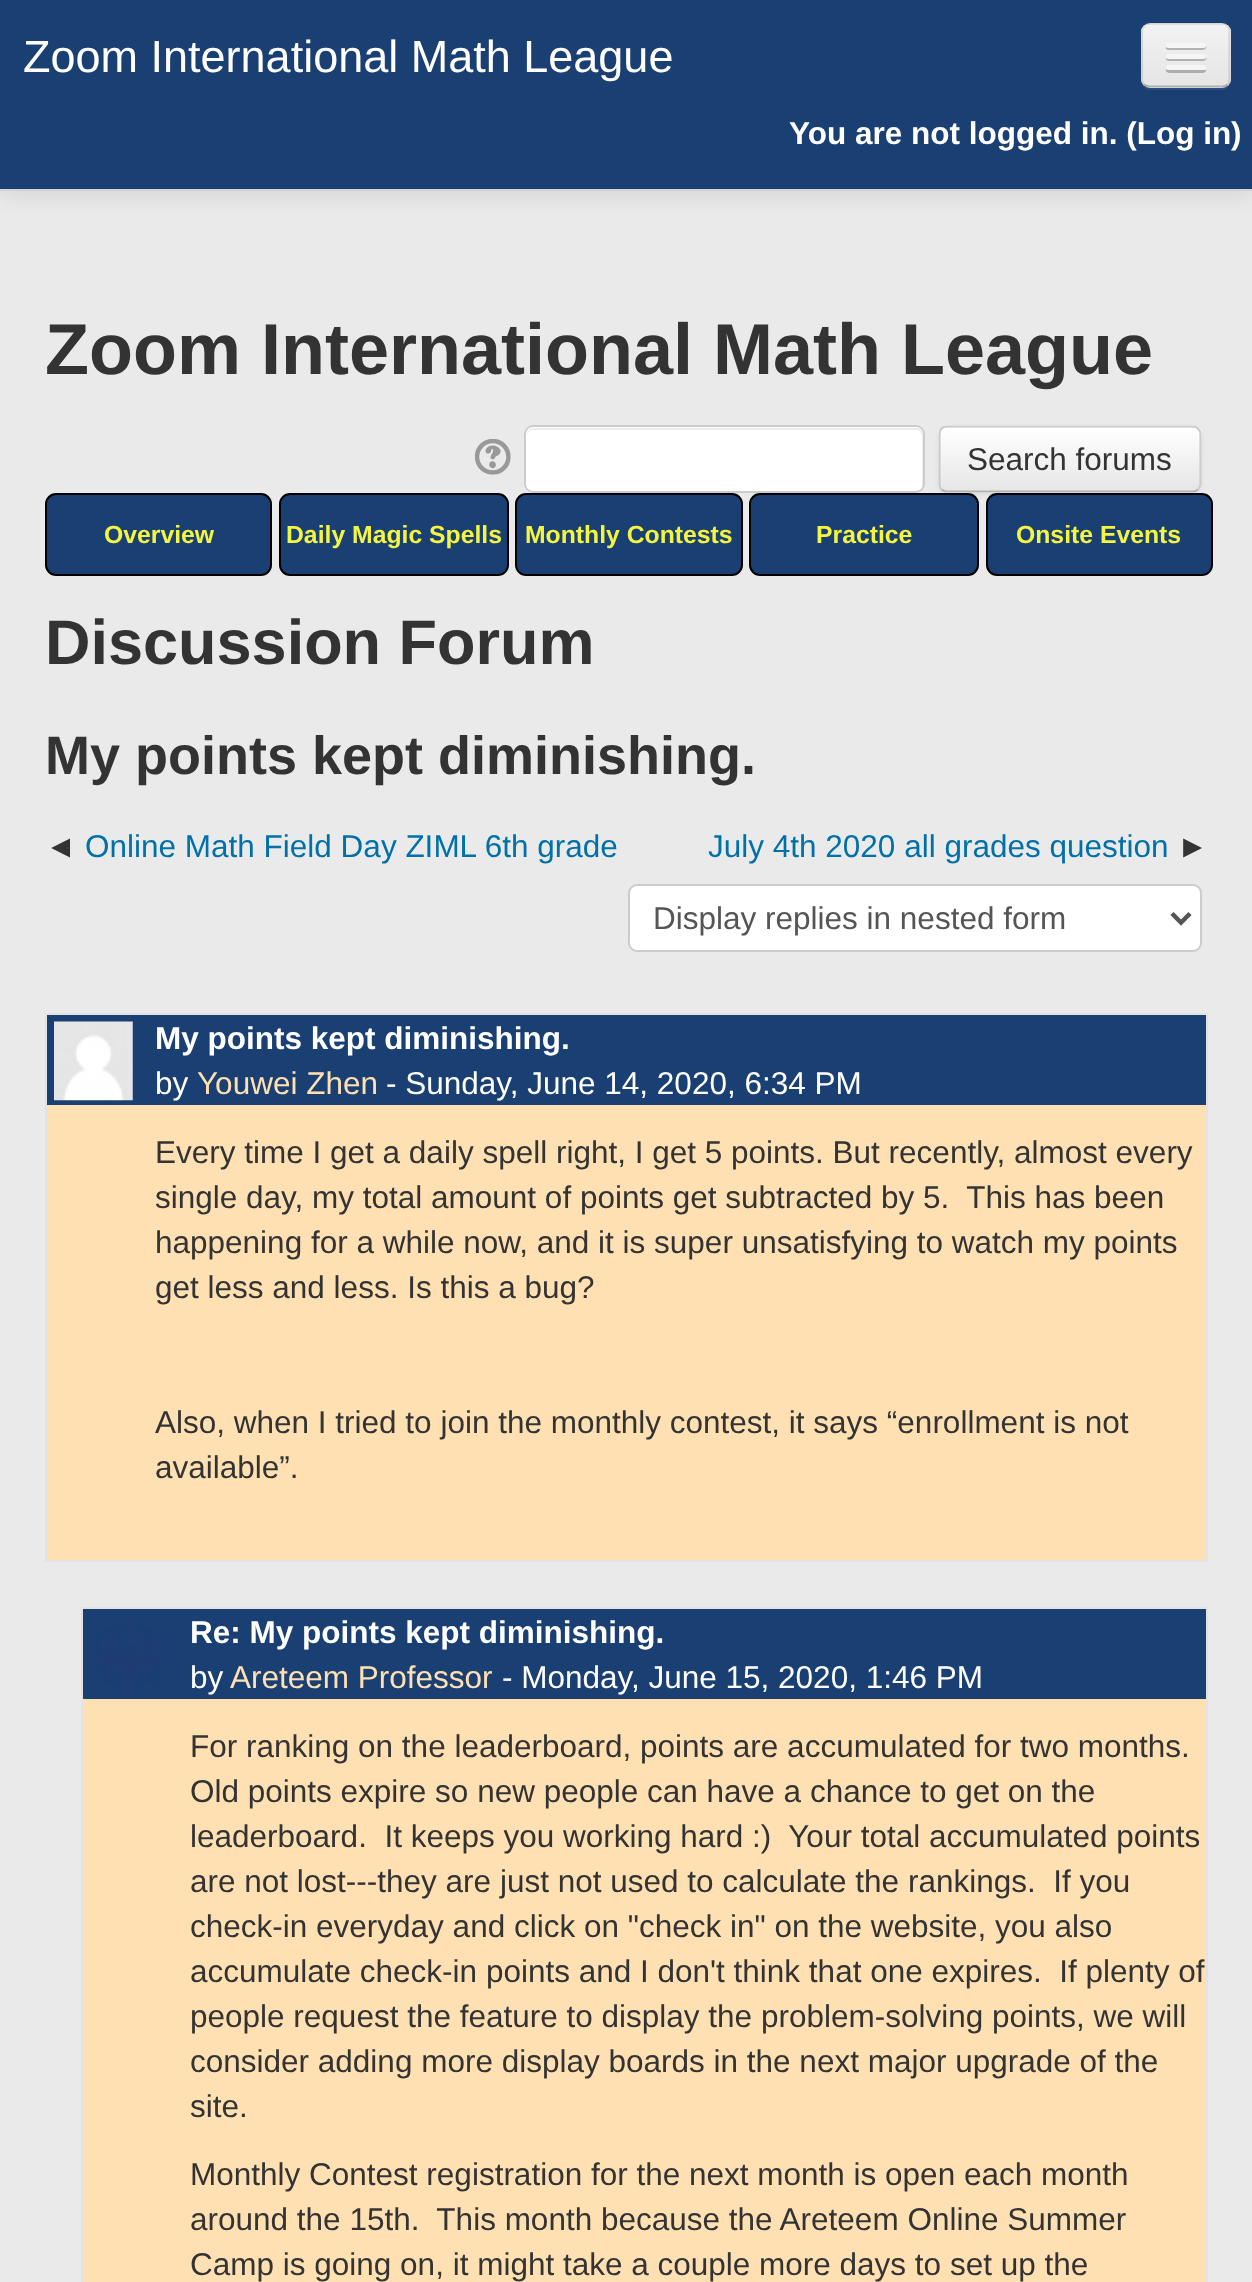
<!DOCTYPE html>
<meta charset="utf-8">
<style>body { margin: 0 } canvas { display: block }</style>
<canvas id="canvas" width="1252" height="2282"></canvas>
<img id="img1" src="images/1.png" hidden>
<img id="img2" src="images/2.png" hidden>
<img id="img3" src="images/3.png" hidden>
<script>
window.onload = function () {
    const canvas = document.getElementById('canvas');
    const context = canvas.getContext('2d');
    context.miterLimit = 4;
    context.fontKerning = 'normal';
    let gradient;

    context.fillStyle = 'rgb(234, 234, 234)';
    context.fillRect(0, 0, 1252, 2282);
    context.fillStyle = 'rgba(0, 0, 0, 0.1)';
    context.filter = 'blur(11px)';
    context.beginPath();
    context.rect(0, 2, 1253, 192);
    context.fill();
    context.filter = 'none';
    context.fillStyle = 'rgb(26, 63, 115)';
    context.fillRect(0, 0, 1252, 189);
    context.fillStyle = 'rgb(212, 212, 212)';
    context.fillRect(0, 189, 1252, 2);
    context.fillStyle = 'rgb(43, 77, 126)';
    context.beginPath();
    context.moveTo(1141, 81);
    context.lineTo(1142, 85);
    context.bezierCurveTo(1143, 87, 1145, 89, 1148, 90);
    context.lineTo(1224, 90);
    context.bezierCurveTo(1226, 89, 1228, 88, 1229, 86);
    context.lineTo(1231, 83);
    context.lineTo(1231, 32);
    context.lineTo(1231, 79);
    context.bezierCurveTo(1231, 84, 1227, 88, 1222, 88);
    context.lineTo(1150, 88);
    context.bezierCurveTo(1146, 88, 1142, 85, 1141, 81);
    context.closePath();
    context.fill();
    context.fillStyle = 'rgb(237, 237, 237)';
    context.beginPath();
    context.roundRect(1141, 23, 90, 65, 9);
    context.fill();
    context.save();
    context.beginPath();
    context.roundRect(1141, 23, 90, 65, 9);
    context.clip();
    gradient = context.createLinearGradient(1186, 25, 1186, 86);
    gradient.addColorStop(0, 'rgb(242, 242, 242)');
    gradient.addColorStop(1, 'rgb(229, 229, 229)');
    context.fillStyle = gradient;
    context.fillRect(1141, 25, 90, 61);
    context.restore();
    context.beginPath();
    context.moveTo(1227.5, 84.5);
    context.bezierCurveTo(1226, 86, 1224, 86.5, 1222, 86.5);
    context.lineTo(1150, 86.5);
    context.bezierCurveTo(1147.5, 86.5, 1145.5, 86, 1144, 84.5);
    context.strokeStyle = 'rgba(0, 0, 0, 0.25)';
    context.lineWidth = 2.2;
    context.stroke();
    context.beginPath();
    context.moveTo(1144, 84.5);
    context.bezierCurveTo(1142.5, 83, 1142, 81, 1142, 79);
    context.lineTo(1142, 31.5);
    context.bezierCurveTo(1142, 29.5, 1142.5, 27.5, 1144, 26);
    context.bezierCurveTo(1145.5, 24.5, 1147.5, 23.5, 1150, 23.5);
    context.lineTo(1222, 23.5);
    context.bezierCurveTo(1224, 23.5, 1226, 24.5, 1227.5, 26);
    context.bezierCurveTo(1229, 27.5, 1229.5, 29.5, 1229.5, 31.5);
    context.lineTo(1229.5, 79);
    context.bezierCurveTo(1229.5, 81, 1229, 83, 1227.5, 84.5);
    context.strokeStyle = 'rgba(0, 0, 0, 0.1)';
    context.stroke();
    context.fillStyle = 'rgb(178, 178, 178)';
    context.beginPath();
    context.moveTo(1166, 47);
    context.bezierCurveTo(1164, 51, 1173, 50, 1174, 50);
    context.lineTo(1198, 50);
    context.bezierCurveTo(1198, 50, 1208, 51, 1206, 46);
    context.lineTo(1204, 47);
    context.bezierCurveTo(1200, 48, 1167, 48, 1166, 47);
    context.closePath();
    context.fill();
    context.fillStyle = 'rgb(245, 245, 245)';
    context.beginPath();
    context.roundRect(1166, 43, 40, 5, 2.5);
    context.fill();
    context.fillStyle = 'rgb(176, 176, 176)';
    context.beginPath();
    context.moveTo(1166, 58);
    context.bezierCurveTo(1165, 62, 1173, 61, 1174, 61);
    context.lineTo(1198, 61);
    context.bezierCurveTo(1199, 61, 1208, 62, 1206, 57);
    context.lineTo(1204, 58);
    context.bezierCurveTo(1200, 59, 1167, 59, 1166, 58);
    context.closePath();
    context.fill();
    context.fillStyle = 'rgb(245, 245, 245)';
    context.beginPath();
    context.roundRect(1166, 54, 40, 5, 2.5);
    context.fill();
    context.fillStyle = 'rgb(174, 174, 174)';
    context.beginPath();
    context.moveTo(1166, 69);
    context.bezierCurveTo(1164, 74, 1174, 73, 1174, 73);
    context.lineTo(1198, 73);
    context.bezierCurveTo(1198, 73, 1209, 74, 1205, 69);
    context.lineTo(1204, 70);
    context.bezierCurveTo(1201, 70, 1168, 70, 1166, 69);
    context.closePath();
    context.fill();
    context.fillStyle = 'rgb(245, 245, 245)';
    context.beginPath();
    context.roundRect(1166, 65, 40, 5, 2.5);
    context.fill();
    context.drawImage(document.getElementById('img1'), 475, 439, 36, 36);
    context.fillStyle = 'rgb(255, 255, 255)';
    context.beginPath();
    context.roundRect(524, 425, 401, 68, 9);
    context.fill();
    context.fillStyle = 'rgb(236, 236, 236)';
    context.beginPath();
    context.moveTo(533, 430);
    context.lineTo(916, 430);
    context.bezierCurveTo(919, 430, 922, 433, 922, 436);
    context.lineTo(922, 488);
    context.bezierCurveTo(923, 487, 923, 485, 923, 484);
    context.lineTo(923, 435);
    context.bezierCurveTo(923, 431, 920, 428, 916, 428);
    context.lineTo(534, 428);
    context.bezierCurveTo(531, 428, 528, 430, 527, 433);
    context.bezierCurveTo(529, 431, 531, 430, 533, 430);
    context.closePath();
    context.fill();
    context.beginPath();
    context.roundRect(525, 426, 399, 66, 8);
    context.strokeStyle = 'rgb(204, 204, 204)';
    context.lineWidth = 2;
    context.stroke();
    context.fillStyle = 'rgba(0, 0, 0, 0.05)';
    context.filter = 'blur(2px)';
    context.beginPath();
    context.roundRect(938, 428, 264, 67, 9);
    context.fill();
    context.filter = 'none';
    context.fillStyle = 'rgb(245, 245, 245)';
    context.beginPath();
    context.roundRect(938, 425, 264, 68, 9);
    context.fill();
    context.save();
    context.beginPath();
    context.roundRect(938, 425, 264, 68, 9);
    context.clip();
    gradient = context.createLinearGradient(1070, 428, 1070, 491);
    gradient.addColorStop(0, 'rgb(255, 255, 255)');
    gradient.addColorStop(1, 'rgb(230, 230, 230)');
    context.fillStyle = gradient;
    context.fillRect(938, 428, 264, 63);
    context.restore();
    context.beginPath();
    context.moveTo(1198, 489.5);
    context.bezierCurveTo(1196.5, 491, 1194.5, 491.5, 1192.5, 491.5);
    context.lineTo(947, 491.5);
    context.bezierCurveTo(945, 491.5, 943, 491, 941.5, 489.5);
    context.strokeStyle = 'rgb(179, 179, 179)';
    context.lineWidth = 2.2;
    context.stroke();
    context.beginPath();
    context.moveTo(941.5, 489.5);
    context.bezierCurveTo(940, 488, 939.5, 486, 939.5, 484);
    context.lineTo(939.5, 434);
    context.bezierCurveTo(939.5, 432, 940, 430, 941.5, 428.5);
    context.bezierCurveTo(943, 427, 945, 426.5, 947, 426.5);
    context.lineTo(1192.5, 426.5);
    context.bezierCurveTo(1194.5, 426.5, 1196.5, 427, 1198, 428.5);
    context.bezierCurveTo(1199.5, 430, 1200.5, 432, 1200.5, 434);
    context.lineTo(1200.5, 484);
    context.bezierCurveTo(1200.5, 486, 1199.5, 488, 1198, 489.5);
    context.strokeStyle = 'rgb(204, 204, 204)';
    context.stroke();
    context.fillStyle = 'rgb(26, 63, 115)';
    context.beginPath();
    context.roundRect(46, 494, 225, 81, 10);
    context.fill();
    context.strokeStyle = 'rgb(0, 0, 0)';
    context.lineWidth = 2;
    context.stroke();
    context.beginPath();
    context.roundRect(280, 494, 228, 81, 10);
    context.fill();
    context.stroke();
    context.beginPath();
    context.roundRect(516, 494, 226, 81, 10);
    context.fill();
    context.stroke();
    context.beginPath();
    context.roundRect(750, 494, 228, 81, 10);
    context.fill();
    context.stroke();
    context.beginPath();
    context.roundRect(987, 494, 225, 81, 10);
    context.fill();
    context.stroke();
    context.fillStyle = 'rgb(255, 255, 255)';
    context.beginPath();
    context.roundRect(629, 885, 572, 66, 8);
    context.fill();
    context.strokeStyle = 'rgb(204, 204, 204)';
    context.stroke();
    context.beginPath();
    context.moveTo(1172, 913.5);
    context.lineTo(1181, 922.5);
    context.lineTo(1190, 913.5);
    context.strokeStyle = 'rgb(85, 85, 85)';
    context.lineWidth = 4.5;
    context.stroke();
    context.fillStyle = 'rgb(255, 224, 179)';
    context.fillRect(47, 1105, 1159, 455);
    context.strokeStyle = 'rgb(227, 227, 227)';
    context.lineWidth = 2;
    context.strokeRect(46, 1014, 1161, 547);
    context.fillStyle = 'rgb(26, 63, 115)';
    context.fillRect(47, 1015, 1159, 90);
    context.drawImage(document.getElementById('img2'), 54, 1021, 79, 80);
    context.fillStyle = 'rgb(255, 224, 179)';
    context.fillRect(83, 1699, 1123, 583);
    context.strokeRect(82, 1608, 1125, 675);
    context.fillStyle = 'rgb(26, 63, 115)';
    context.fillRect(83, 1609, 1123, 90);
    context.drawImage(document.getElementById('img3'), 93, 1623, 71, 67);
    context.font = '45px Liberation Sans';
    context.fillStyle = 'rgb(255, 255, 255)';
    context.fillText('Zoom International Math League', 23, 72);
    context.font = 'bold 31.5px Liberation Sans';
    context.fillText('You are not logged in. (Log in)', 789, 144);
    context.font = 'bold 72px Liberation Sans';
    context.fillStyle = 'rgb(51, 51, 51)';
    context.fillText('Zoom International Math League', 45, 374);
    context.font = '31.5px Liberation Sans';
    context.fillText('Search forums', 967, 470);
    context.font = 'bold 24.75px Liberation Sans';
    context.fillStyle = 'rgb(244, 244, 66)';
    context.fillText('Overview', 104, 543);
    context.fillText('Daily Magic Spells', 286, 543);
    context.fillText('Monthly Contests', 525, 543);
    context.fillText('Practice', 816, 543);
    context.fillText('Onsite Events', 1016, 543);
    context.font = 'bold 63px Liberation Sans';
    context.fillStyle = 'rgb(51, 51, 51)';
    context.fillText('Discussion Forum', 45, 664);
    context.font = 'bold 54px Liberation Sans';
    context.fillText('My points kept diminishing.', 45, 774);
    context.font = '31.5px Liberation Sans';
    context.fillText('◄', 45, 857);
    context.fillStyle = 'rgb(0, 112, 168)';
    context.fillText('Online Math Field Day ZIML 6th grade', 85, 857);
    context.fillText('July 4th 2020 all grades question', 708, 857);
    context.fillStyle = 'rgb(51, 51, 51)';
    context.fillText('►', 1177, 857);
    context.fillStyle = 'rgb(85, 85, 85)';
    context.fillText('Display replies in nested form', 653, 929);
    context.font = 'bold 31.5px Liberation Sans';
    context.fillStyle = 'rgb(255, 255, 255)';
    context.fillText('My points kept diminishing.', 155, 1049);
    context.font = '31.5px Liberation Sans';
    context.fillText('by', 155, 1094);
    context.fillStyle = 'rgb(255, 224, 179)';
    context.fillText('Youwei Zhen', 197, 1094);
    context.fillStyle = 'rgb(255, 255, 255)';
    context.fillText('- Sunday, June 14, 2020, 6:34 PM', 386, 1094);
    context.fillStyle = 'rgb(51, 51, 51)';
    context.fillText('Every time I get a daily spell right, I get 5 points. But recently, almost every', 155, 1163);
    context.fillText('single day, my total amount of points get subtracted by 5.  This has been', 155, 1208);
    context.fillText('happening for a while now, and it is super unsatisfying to watch my points', 155, 1253);
    context.fillText('get less and less. Is this a bug?', 155, 1298);
    context.fillText('Also, when I tried to join the monthly contest, it says “enrollment is not', 155, 1433);
    context.fillText('available”.', 155, 1478);
    context.font = 'bold 31.5px Liberation Sans';
    context.fillStyle = 'rgb(255, 255, 255)';
    context.fillText('Re: My points kept diminishing.', 190, 1643);
    context.font = '31.5px Liberation Sans';
    context.fillText('by', 190, 1688);
    context.fillStyle = 'rgb(255, 224, 179)';
    context.fillText('Areteem Professor', 230, 1688);
    context.fillStyle = 'rgb(255, 255, 255)';
    context.fillText('- Monday, June 15, 2020, 1:46 PM', 502, 1688);
    context.fillStyle = 'rgb(51, 51, 51)';
    context.fillText('For ranking on the leaderboard, points are accumulated for two months.', 190, 1757);
    context.fillText('Old points expire so new people can have a chance to get on the', 190, 1802);
    context.fillText('leaderboard.  It keeps you working hard :)  Your total accumulated points', 190, 1847);
    context.fillText('are not lost---they are just not used to calculate the rankings.  If you', 190, 1892);
    context.fillText('check-in everyday and click on "check in" on the website, you also', 190, 1937);
    context.fillText('accumulate check-in points and I don\'t think that one expires.  If plenty of', 190, 1982);
    context.fillText('people request the feature to display the problem-solving points, we will', 190, 2027);
    context.fillText('consider adding more display boards in the next major upgrade of the', 190, 2072);
    context.fillText('site.', 190, 2117);
    context.fillText('Monthly Contest registration for the next month is open each month', 190, 2185);
    context.fillText('around the 15th.  This month because the Areteem Online Summer', 190, 2230);
    context.fillText('Camp is going on, it might take a couple more days to set up the', 190, 2275);
};
</script>
